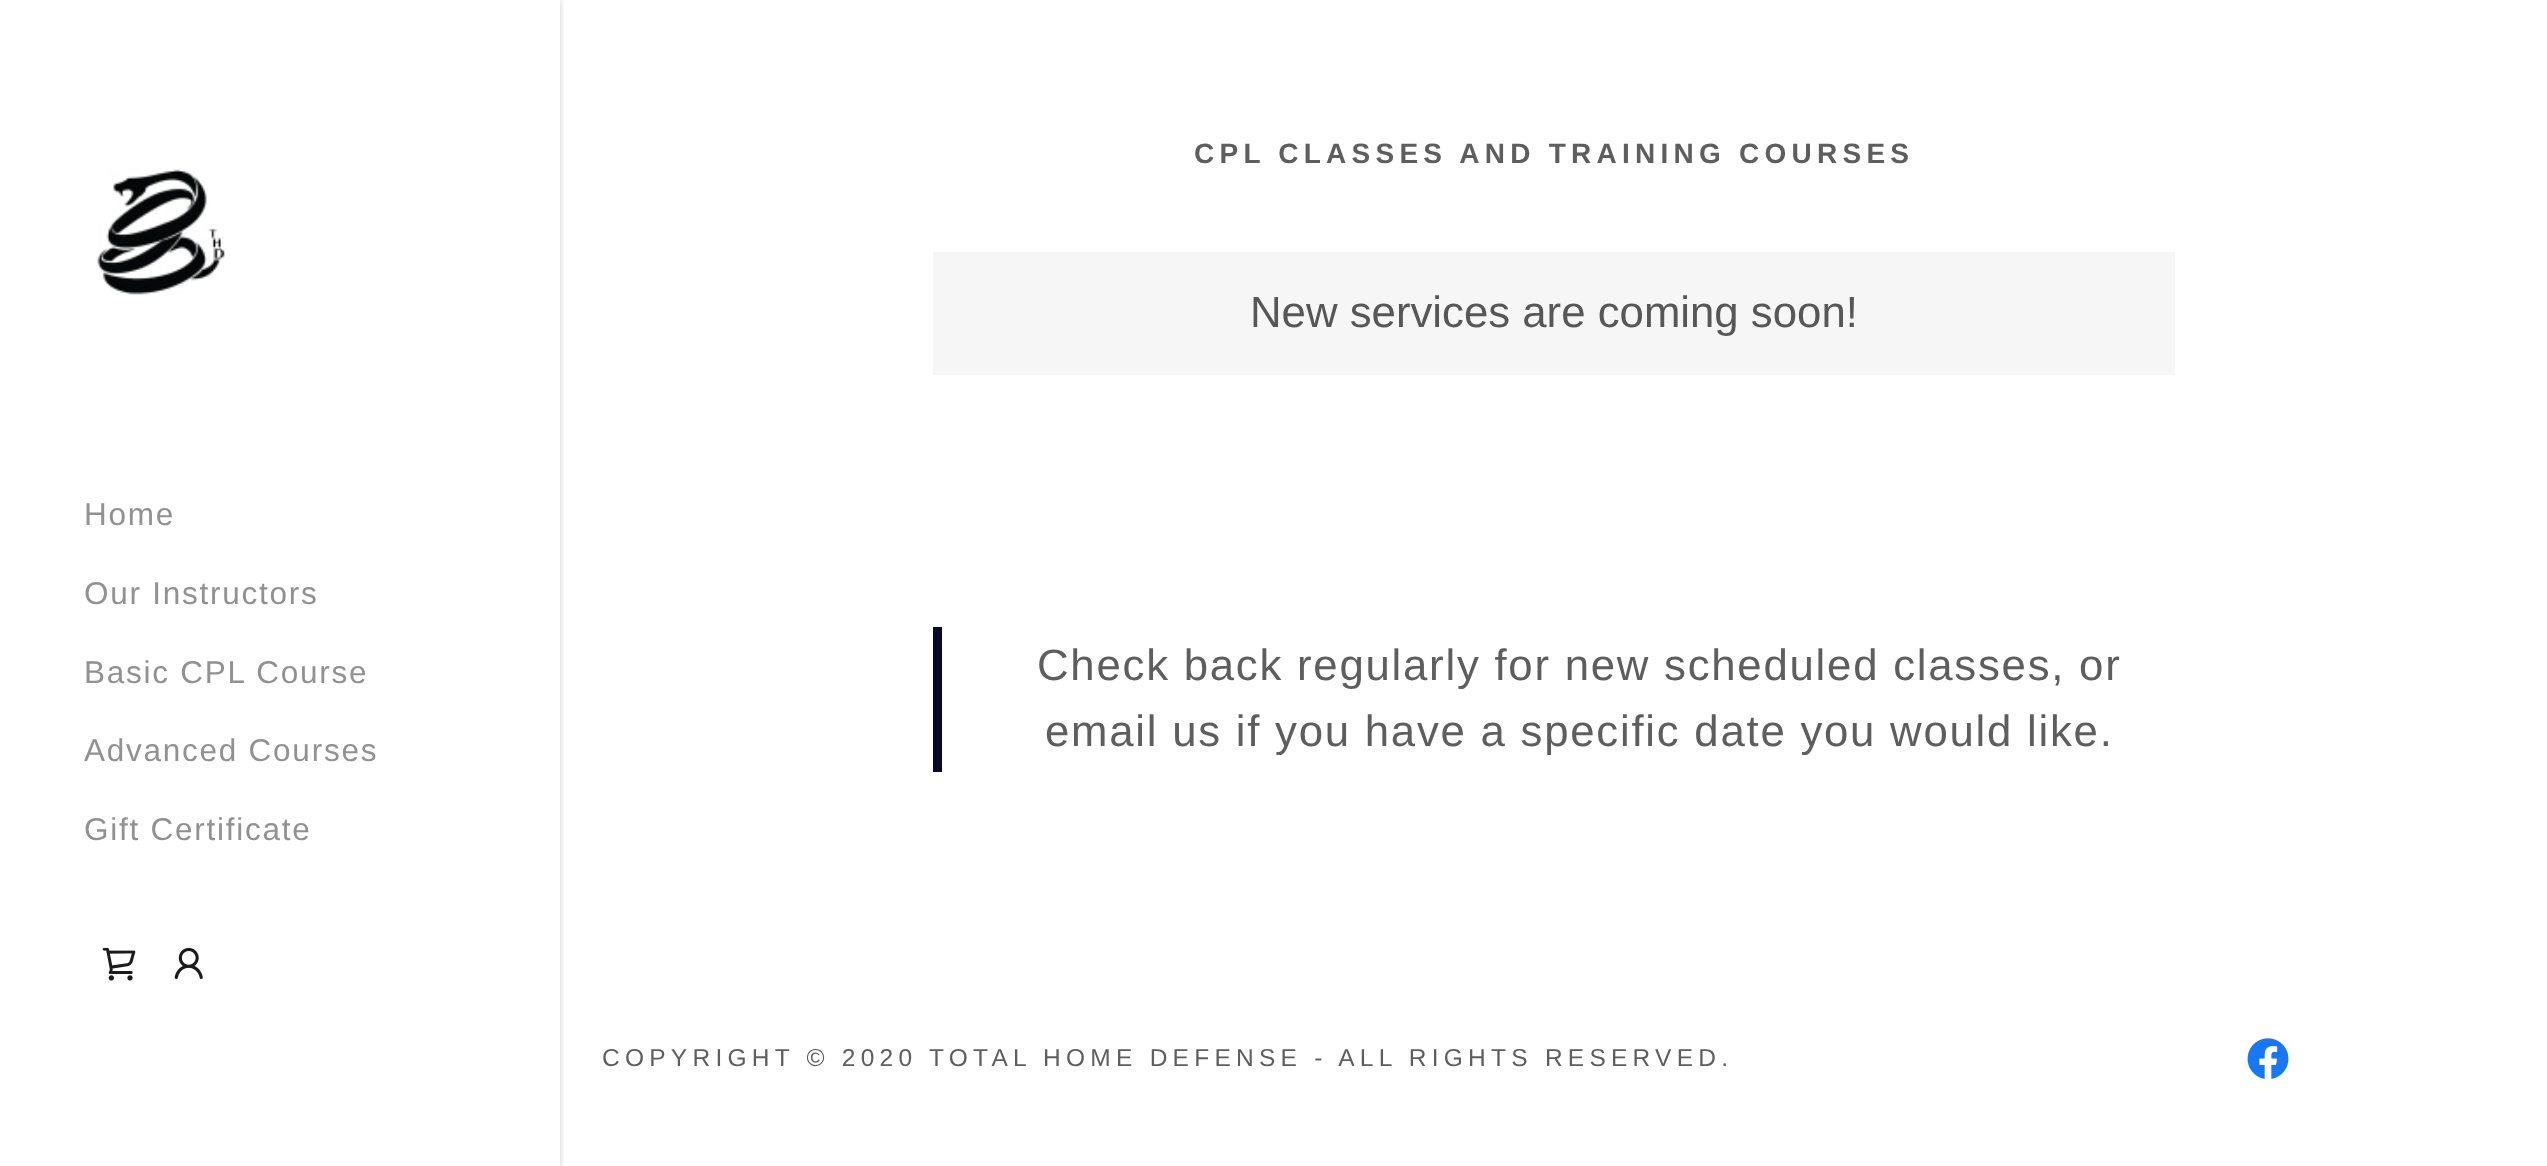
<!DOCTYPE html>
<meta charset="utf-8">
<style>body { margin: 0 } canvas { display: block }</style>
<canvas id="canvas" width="2547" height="1166"></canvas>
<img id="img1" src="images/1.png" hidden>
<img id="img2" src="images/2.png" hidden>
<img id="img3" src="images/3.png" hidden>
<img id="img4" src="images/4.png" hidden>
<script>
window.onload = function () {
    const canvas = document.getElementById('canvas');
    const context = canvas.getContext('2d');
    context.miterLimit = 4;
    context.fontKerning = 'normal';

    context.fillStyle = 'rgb(255, 255, 255)';
    context.fillRect(0, 0, 2547, 1166);
    context.fillStyle = 'rgb(246, 246, 246)';
    context.fillRect(933, 252, 1242, 123);
    context.save();
    context.beginPath();
    context.rect(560, 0, 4, 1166);
    context.clip();
    context.fillStyle = 'rgba(0, 0, 0, 0.2)';
    context.filter = 'blur(3.5px)';
    context.beginPath();
    context.rect(0, 0, 560, 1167);
    context.fill();
    context.filter = 'none';
    context.restore();
    context.drawImage(document.getElementById('img1'), 97, 168, 128, 127);
    context.drawImage(document.getElementById('img2'), 102, 947, 34, 34);
    context.drawImage(document.getElementById('img3'), 174, 947, 29, 32);
    context.fillStyle = 'rgb(10, 8, 42)';
    context.fillRect(933, 627, 9, 145);
    context.drawImage(document.getElementById('img4'), 2247, 1038, 42, 41);
    context.letterSpacing = '5.25px';
    context.font = 'bold 28px Liberation Sans';
    context.fillStyle = 'rgb(94, 94, 94)';
    context.fillText('CPL CLASSES AND TRAINING COURSES', 1194, 163);
    context.letterSpacing = '0px';
    context.font = '43.75px Liberation Sans';
    context.fillStyle = 'rgb(87, 87, 87)';
    context.fillText('New services are coming soon!', 1250, 327);
    context.letterSpacing = '1.75px';
    context.font = '31.5px Liberation Sans';
    context.fillStyle = 'rgb(145, 145, 145)';
    context.fillText('Home', 84, 525);
    context.fillText('Our Instructors', 84, 604);
    context.fillText('Basic CPL Course', 84, 683);
    context.fillText('Advanced Courses', 84, 761);
    context.fillText('Gift Certificate', 84, 840);
    context.font = '43.75px Liberation Sans';
    context.fillStyle = 'rgb(94, 94, 94)';
    context.fillText('Check back regularly for new scheduled classes, or', 1037, 680);
    context.fillText('email us if you have a specific date you would like.', 1045, 746);
    context.letterSpacing = '5.25px';
    context.font = '24.5px Liberation Sans';
    context.fillText('COPYRIGHT © 2020 TOTAL HOME DEFENSE - ALL RIGHTS RESERVED.', 602, 1066);
};
</script>
